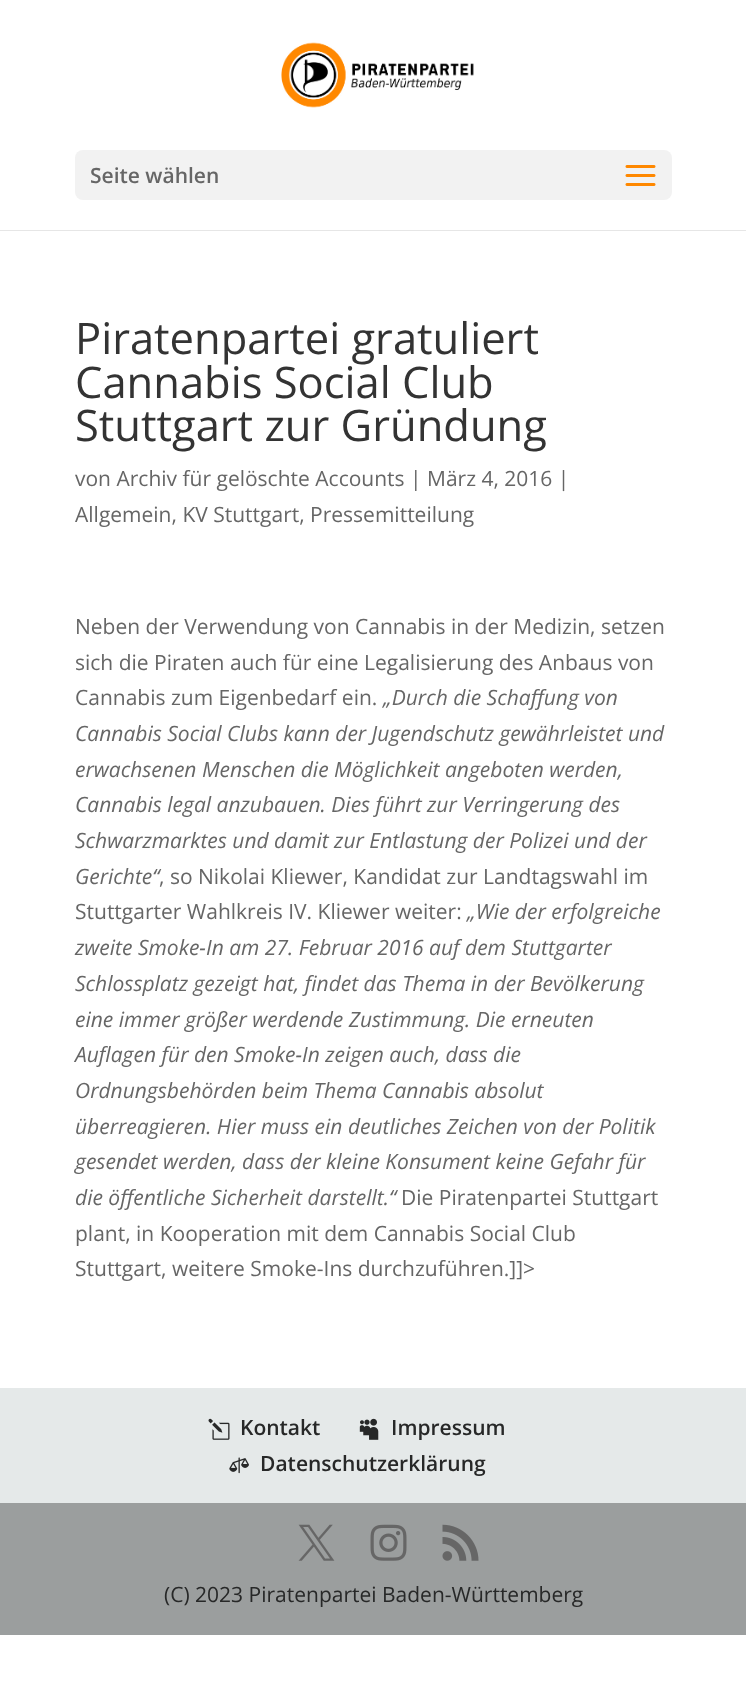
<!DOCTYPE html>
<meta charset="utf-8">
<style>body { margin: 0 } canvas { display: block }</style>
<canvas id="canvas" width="746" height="1690"></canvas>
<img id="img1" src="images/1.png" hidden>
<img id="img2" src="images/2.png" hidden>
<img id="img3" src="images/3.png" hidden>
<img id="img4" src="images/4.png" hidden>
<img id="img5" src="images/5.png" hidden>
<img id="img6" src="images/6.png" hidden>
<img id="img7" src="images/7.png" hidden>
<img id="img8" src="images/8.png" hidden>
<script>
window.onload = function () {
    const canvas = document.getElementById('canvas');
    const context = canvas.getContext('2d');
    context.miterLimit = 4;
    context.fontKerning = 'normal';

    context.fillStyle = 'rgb(255, 255, 255)';
    context.fillRect(0, 0, 746, 1690);
    context.fillStyle = 'rgb(230, 230, 230)';
    context.fillRect(0, 230, 746, 1);
    context.drawImage(document.getElementById('img1'), 281, 42, 193, 66);
    context.fillStyle = 'rgb(242, 242, 242)';
    context.beginPath();
    context.roundRect(75, 150, 597, 50, 8);
    context.fill();
    context.drawImage(document.getElementById('img2'), 625, 165, 31, 21);
    context.fillStyle = 'rgb(229, 233, 233)';
    context.fillRect(0, 1388, 746, 115);
    context.drawImage(document.getElementById('img3'), 208, 1418, 22, 22);
    context.drawImage(document.getElementById('img4'), 359, 1418, 20, 22);
    context.drawImage(document.getElementById('img5'), 229, 1457, 20, 17);
    context.fillStyle = 'rgb(155, 158, 158)';
    context.fillRect(0, 1503, 746, 132);
    context.drawImage(document.getElementById('img6'), 298, 1524, 37, 37);
    context.drawImage(document.getElementById('img7'), 370, 1524, 37, 37);
    context.drawImage(document.getElementById('img8'), 442, 1524, 37, 37);
    context.font = '600 21px Open Sans';
    context.fillStyle = 'rgb(102, 102, 102)';
    context.fillText('Seite wählen', 90, 183);
    context.font = '43.5px Open Sans';
    context.fillStyle = 'rgb(51, 51, 51)';
    context.fillText('Piratenpartei gratuliert', 75, 354);
    context.fillText('Cannabis Social Club', 75, 398);
    context.fillText('Stuttgart zur Gründung', 75, 441);
    context.font = '21px Open Sans';
    context.fillStyle = 'rgb(102, 102, 102)';
    context.fillText('von Archiv für gelöschte Accounts | März 4, 2016 |', 75, 486);
    context.fillText('Allgemein, KV Stuttgart, Pressemitteilung', 75, 522);
    context.fillText('Neben der Verwendung von Cannabis in der Medizin, setzen', 75, 634);
    context.fillText('sich die Piraten auch für eine Legalisierung des Anbaus von', 75, 670);
    context.fillText('Cannabis zum Eigenbedarf ein.', 75, 705);
    context.font = 'italic 21px Open Sans';
    context.fillText('„Durch die Schaffung von', 383, 705);
    context.fillText('Cannabis Social Clubs kann der Jugendschutz gewährleistet und', 75, 741);
    context.fillText('erwachsenen Menschen die Möglichkeit angeboten werden,', 75, 777);
    context.fillText('Cannabis legal anzubauen. Dies führt zur Verringerung des', 75, 812);
    context.fillText('Schwarzmarktes und damit zur Entlastung der Polizei und der', 75, 848);
    context.fillText('Gerichte“', 75, 884);
    context.font = '21px Open Sans';
    context.fillText(', so Nikolai Kliewer, Kandidat zur Landtagswahl im', 159, 884);
    context.fillText('Stuttgarter Wahlkreis IV. Kliewer weiter:', 75, 919);
    context.font = 'italic 21px Open Sans';
    context.fillText('„Wie der erfolgreiche', 467, 919);
    context.fillText('zweite Smoke-In am 27. Februar 2016 auf dem Stuttgarter', 75, 955);
    context.fillText('Schlossplatz gezeigt hat, findet das Thema in der Bevölkerung', 75, 991);
    context.fillText('eine immer größer werdende Zustimmung. Die erneuten', 75, 1027);
    context.fillText('Auflagen für den Smoke-In zeigen auch, dass die', 75, 1062);
    context.fillText('Ordnungsbehörden beim Thema Cannabis absolut', 75, 1098);
    context.fillText('überreagieren. Hier muss ein deutliches Zeichen von der Politik', 75, 1134);
    context.fillText('gesendet werden, dass der kleine Konsument keine Gefahr für', 75, 1169);
    context.fillText('die öffentliche Sicherheit darstellt.“', 75, 1205);
    context.font = '21px Open Sans';
    context.fillText('Die Piratenpartei Stuttgart', 401, 1205);
    context.fillText('plant, in Kooperation mit dem Cannabis Social Club', 75, 1241);
    context.fillText('Stuttgart, weitere Smoke-Ins durchzuführen.]]>', 75, 1276);
    context.font = '600 21px Open Sans';
    context.fillStyle = 'rgb(39, 40, 40)';
    context.fillText('Kontakt', 240, 1435);
    context.fillText('Impressum', 391, 1435);
    context.fillText('Datenschutzerklärung', 260, 1471);
    context.font = '21px Open Sans';
    context.fillText('(C) 2023 Piratenpartei Baden-Württemberg', 164, 1602);
};
</script>
